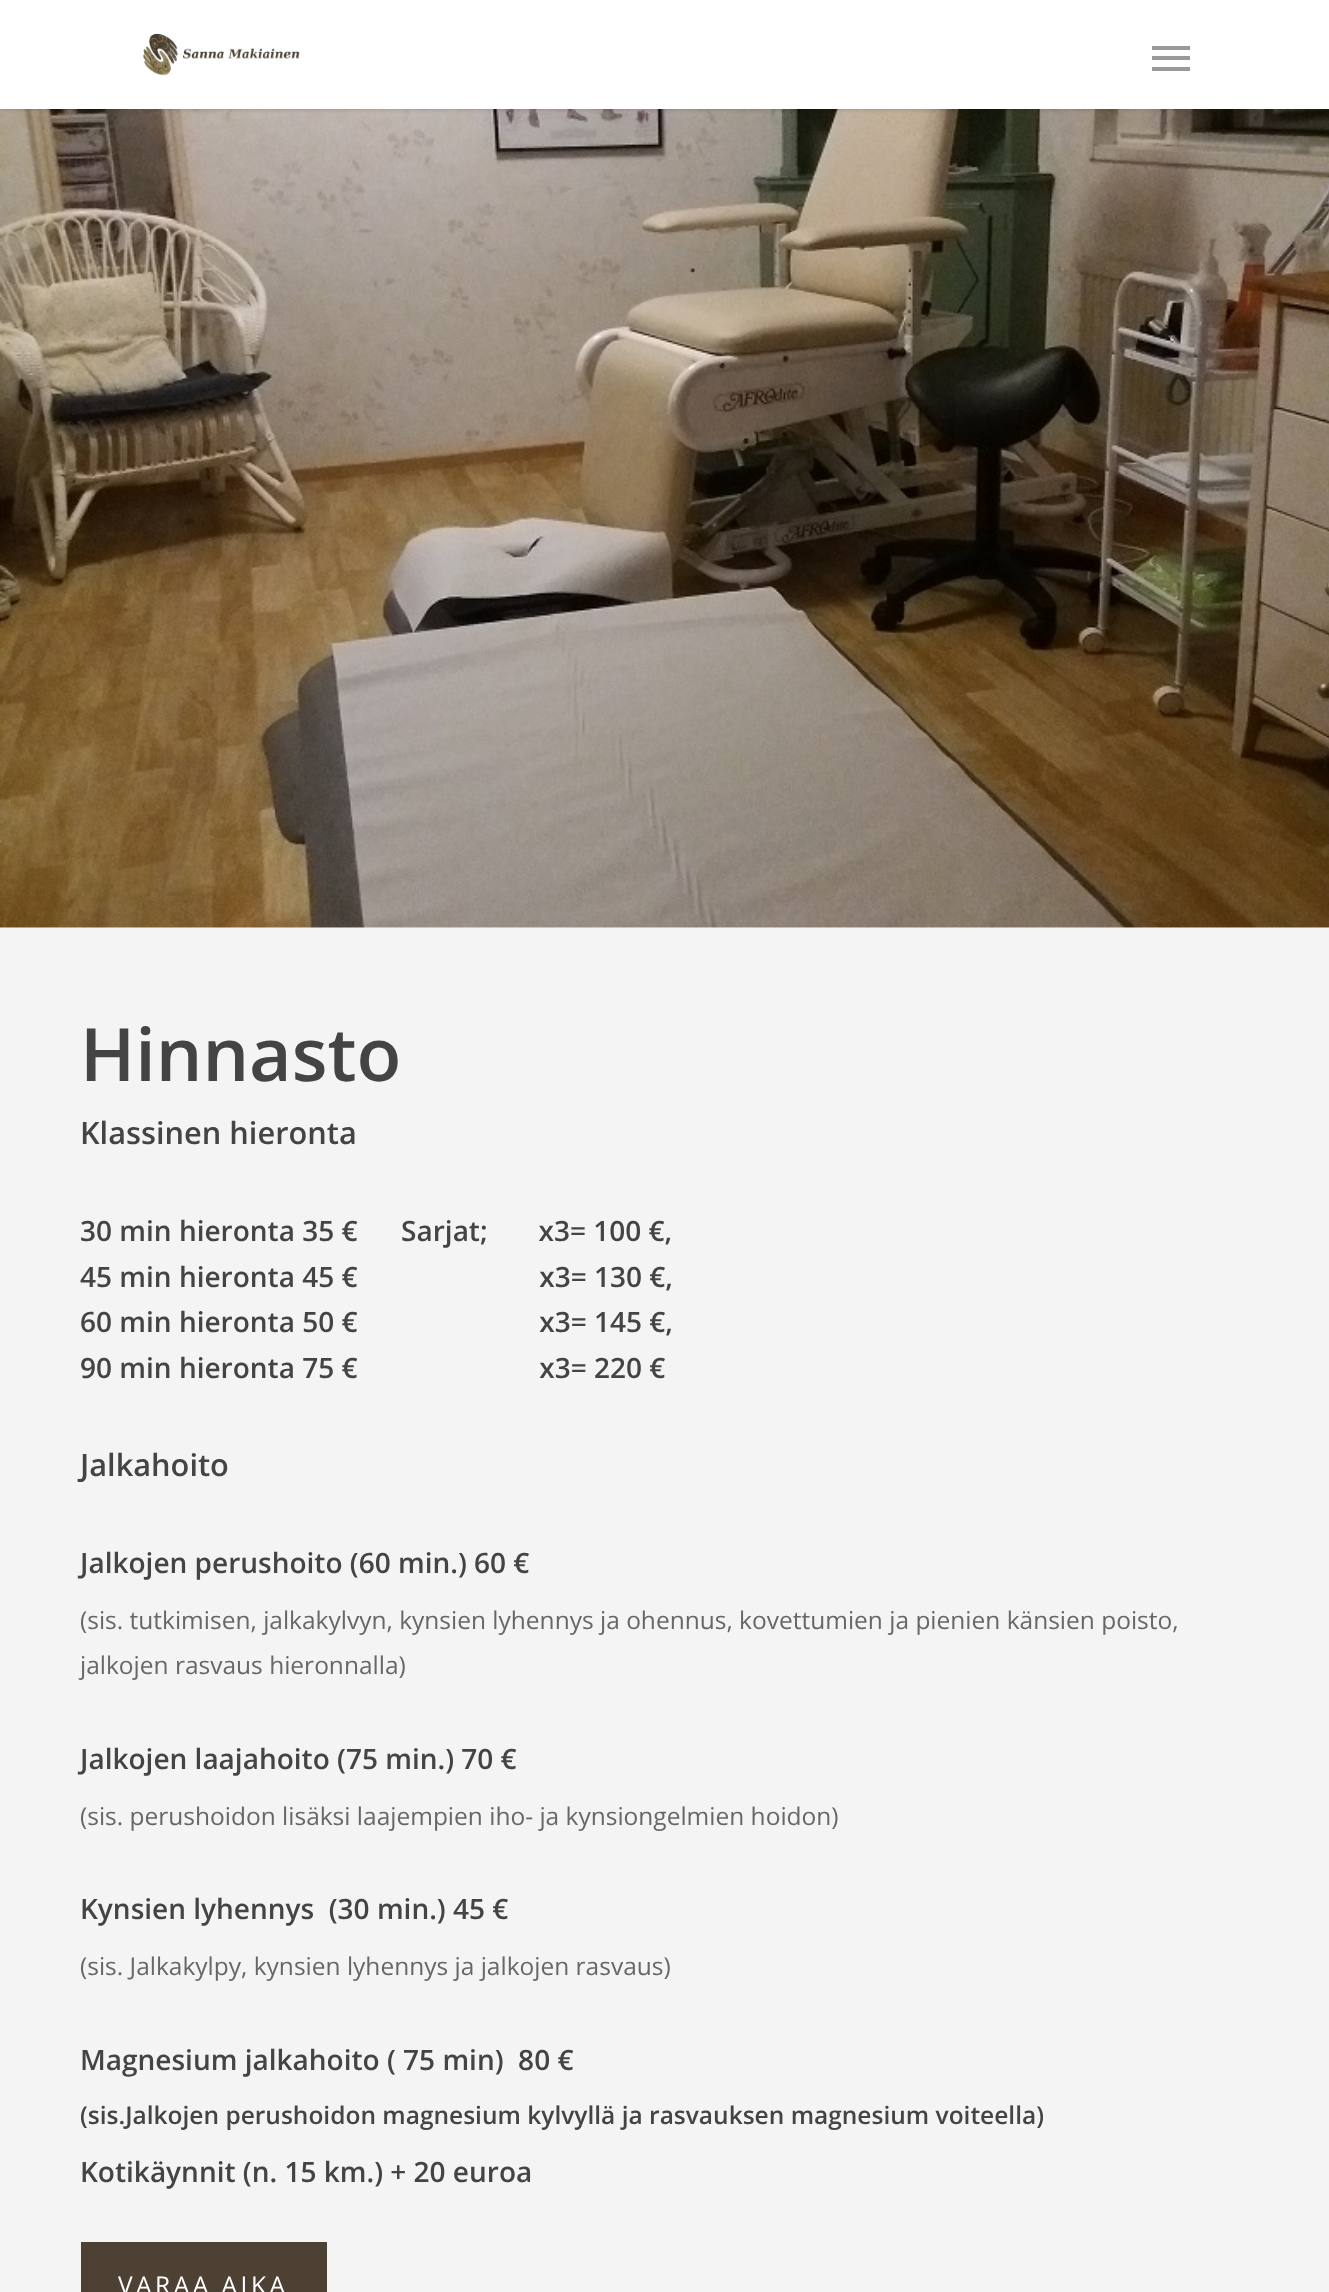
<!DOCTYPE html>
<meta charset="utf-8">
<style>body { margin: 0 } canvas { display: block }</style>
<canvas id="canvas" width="1329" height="2292"></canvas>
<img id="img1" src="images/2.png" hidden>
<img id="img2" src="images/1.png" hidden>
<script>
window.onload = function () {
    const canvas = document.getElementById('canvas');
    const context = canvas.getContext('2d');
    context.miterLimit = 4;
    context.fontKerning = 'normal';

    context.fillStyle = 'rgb(255, 255, 255)';
    context.fillRect(0, 0, 1329, 2292);
    context.drawImage(document.getElementById('img1'), 0, 109, 1329, 819);
    context.fillStyle = 'rgba(0, 0, 0, 0.22)';
    context.filter = 'blur(2.5px)';
    context.beginPath();
    context.rect(0, 0, 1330, 109);
    context.fill();
    context.filter = 'none';
    context.fillStyle = 'rgb(255, 255, 255)';
    context.fillRect(0, 0, 1329, 109);
    context.drawImage(document.getElementById('img2'), 143, 33, 157, 43);
    context.fillStyle = 'rgb(153, 153, 153)';
    context.fillRect(1152, 46, 38, 4);
    context.fillRect(1152, 67, 38, 4);
    context.fillRect(1152, 56, 38, 4);
    context.fillStyle = 'rgb(244, 244, 244)';
    context.fillRect(0, 928, 1329, 1364);
    context.fillStyle = 'rgb(77, 65, 51)';
    context.fillRect(81, 2242, 246, 50);
    context.font = '600 73.5px Open Sans';
    context.fillStyle = 'rgb(68, 68, 68)';
    context.fillText('Hinnasto', 80, 1081);
    context.font = '600 30.75px Open Sans';
    context.fillText('Klassinen hieronta', 80, 1144);
    context.font = '600 28px Open Sans';
    context.fillText('30 min hieronta 35 €      Sarjat;       x3= 100 €,', 80, 1241);
    context.fillText('45 min hieronta 45 €                         x3= 130 €,', 80, 1287);
    context.fillText('60 min hieronta 50 €                         x3= 145 €,', 80, 1332);
    context.fillText('90 min hieronta 75 €                         x3= 220 €', 80, 1378);
    context.font = '600 30.75px Open Sans';
    context.fillText('Jalkahoito', 80, 1476);
    context.font = '600 28px Open Sans';
    context.fillText('Jalkojen perushoito (60 min.) 60 €', 80, 1573);
    context.font = '24.5px Open Sans';
    context.fillStyle = 'rgb(103, 103, 103)';
    context.fillText('(sis. tutkimisen, jalkakylvyn, kynsien lyhennys ja ohennus, kovettumien ja pienien känsien poisto,', 80, 1629);
    context.fillText('jalkojen rasvaus hieronnalla)', 80, 1674);
    context.font = '600 28px Open Sans';
    context.fillStyle = 'rgb(68, 68, 68)';
    context.fillText('Jalkojen laajahoito (75 min.) 70 €', 80, 1769);
    context.font = '24.5px Open Sans';
    context.fillStyle = 'rgb(103, 103, 103)';
    context.fillText('(sis. perushoidon lisäksi laajempien iho- ja kynsiongelmien hoidon)', 80, 1825);
    context.font = '600 28px Open Sans';
    context.fillStyle = 'rgb(68, 68, 68)';
    context.fillText('Kynsien lyhennys  (30 min.) 45 €', 80, 1919);
    context.font = '24.5px Open Sans';
    context.fillStyle = 'rgb(103, 103, 103)';
    context.fillText('(sis. Jalkakylpy, kynsien lyhennys ja jalkojen rasvaus)', 80, 1975);
    context.font = '600 28px Open Sans';
    context.fillStyle = 'rgb(68, 68, 68)';
    context.fillText('Magnesium jalkahoito ( 75 min)  80 €', 80, 2070);
    context.font = '600 24.5px Open Sans';
    context.fillText('(sis.Jalkojen perushoidon magnesium kylvyllä ja rasvauksen magnesium voiteella)', 80, 2124);
    context.font = '600 28px Open Sans';
    context.fillText('Kotikäynnit (n. 15 km.) + 20 euroa', 80, 2182);
    context.letterSpacing = '3.5px';
    context.font = '24.5px Open Sans';
    context.fillStyle = 'rgb(255, 255, 255)';
    context.fillText('VARAA AIKA', 118, 2294);
};
</script>
